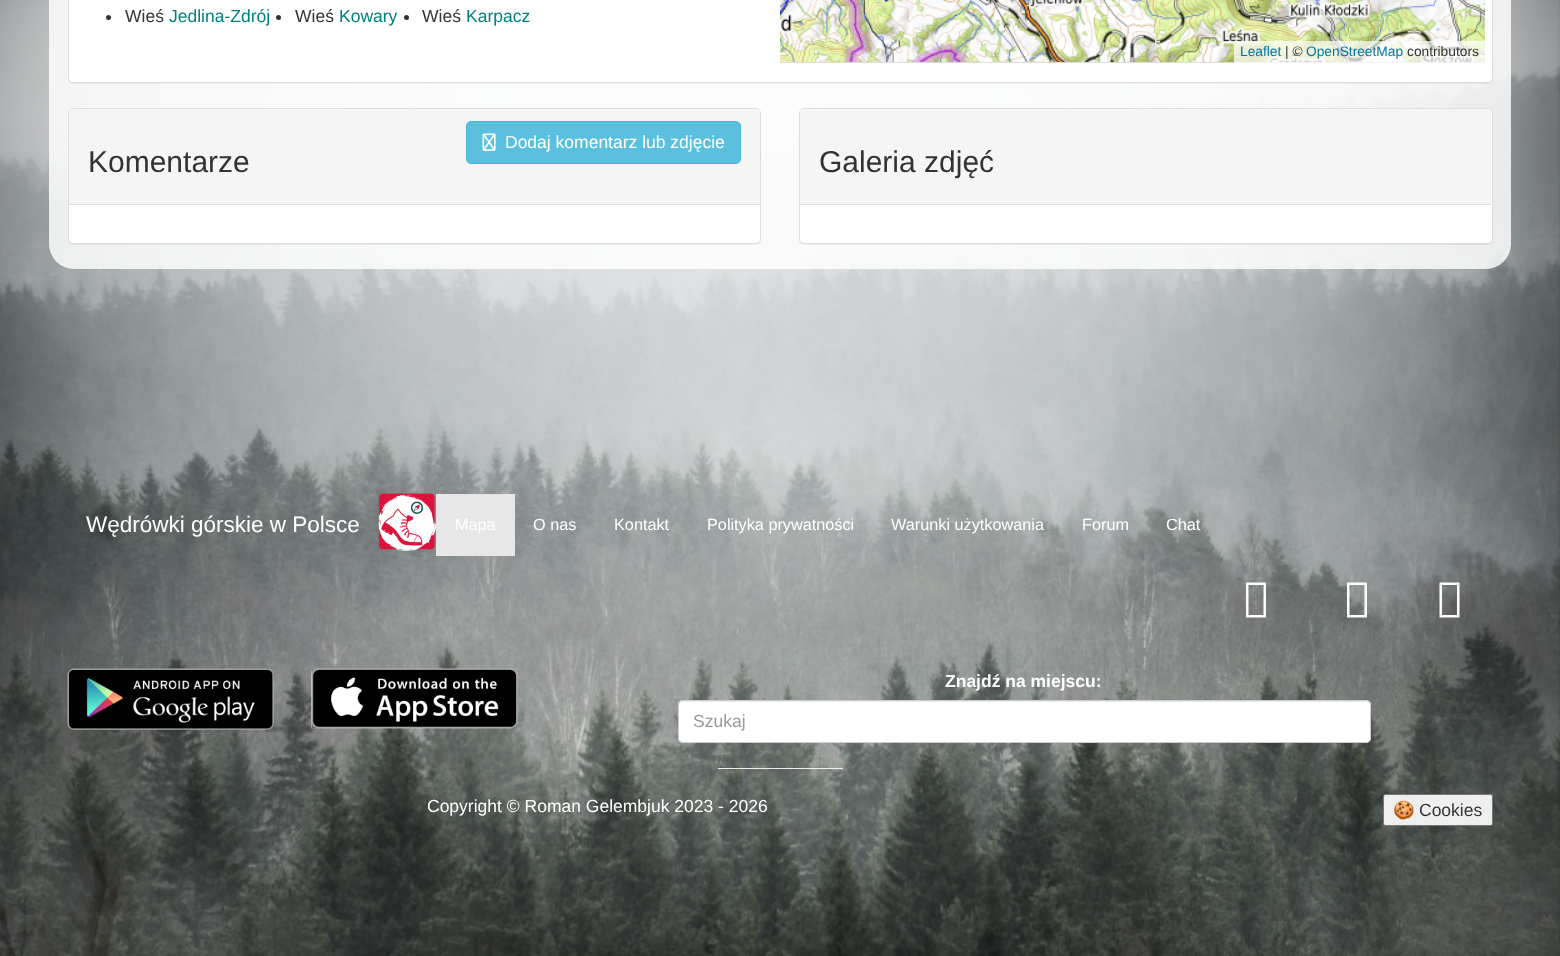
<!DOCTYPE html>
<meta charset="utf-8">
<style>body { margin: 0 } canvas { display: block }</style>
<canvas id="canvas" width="1560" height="956"></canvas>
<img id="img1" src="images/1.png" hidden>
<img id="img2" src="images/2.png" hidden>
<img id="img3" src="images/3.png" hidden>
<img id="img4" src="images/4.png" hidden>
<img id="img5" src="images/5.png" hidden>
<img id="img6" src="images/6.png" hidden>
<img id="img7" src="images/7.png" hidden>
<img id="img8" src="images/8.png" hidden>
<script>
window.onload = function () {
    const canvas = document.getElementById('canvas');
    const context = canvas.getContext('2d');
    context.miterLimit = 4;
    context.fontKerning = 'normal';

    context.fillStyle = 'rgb(255, 255, 255)';
    context.fillRect(0, 0, 1560, 956);
    context.drawImage(document.getElementById('img1'), 0, 0, 1560, 956);
    context.fillStyle = 'rgba(255, 255, 255, 0.82)';
    context.beginPath();
    context.roundRect(49, -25, 1462, 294, 25);
    context.fill();
    context.fillStyle = 'rgba(0, 0, 0, 0.05)';
    context.filter = 'blur(0.5px)';
    context.beginPath();
    context.roundRect(68, -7, 1425, 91, 5);
    context.fill();
    context.filter = 'none';
    context.fillStyle = 'rgb(255, 255, 255)';
    context.beginPath();
    context.roundRect(68.5, -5.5, 1424, 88, 4.5);
    context.fill();
    context.strokeStyle = 'rgb(221, 221, 221)';
    context.stroke();
    context.fillStyle = 'rgb(51, 51, 51)';
    context.beginPath();
    context.arc(108.5, 17.5, 2.5, 0, 2 * Math.PI);
    context.fill();
    context.beginPath();
    context.arc(278.5, 17.5, 2.5, 0, 2 * Math.PI);
    context.fill();
    context.beginPath();
    context.arc(406.5, 17.5, 2.5, 0, 2 * Math.PI);
    context.fill();
    context.fillStyle = 'rgb(221, 221, 221)';
    context.fillRect(780, 62, 705, 1);
    context.drawImage(document.getElementById('img2'), 780, 0, 249, 62);
    context.drawImage(document.getElementById('img3'), 1029, 0, 320, 62);
    context.drawImage(document.getElementById('img4'), 1349, 0, 136, 62);
    context.fillStyle = 'rgba(255, 255, 255, 0.7)';
    context.fillRect(1234, 41, 251, 22);
    context.fillStyle = 'rgba(0, 0, 0, 0.05)';
    context.filter = 'blur(0.5px)';
    context.beginPath();
    context.roundRect(68, 109, 693, 136, 5);
    context.fill();
    context.filter = 'none';
    context.fillStyle = 'rgb(255, 255, 255)';
    context.beginPath();
    context.roundRect(68.5, 108.5, 692, 135, 4.5);
    context.fill();
    context.stroke();
    context.fillStyle = 'rgb(245, 245, 245)';
    context.beginPath();
    context.roundRect(69, 109, 691, 96, [4, 4, 0, 0]);
    context.fill();
    context.fillStyle = 'rgb(221, 221, 221)';
    context.fillRect(69, 204, 691, 1);
    context.fillStyle = 'rgb(91, 192, 222)';
    context.beginPath();
    context.roundRect(466.5, 121.5, 274, 42, 4.5);
    context.fill();
    context.strokeStyle = 'rgb(70, 184, 218)';
    context.stroke();
    context.drawImage(document.getElementById('img5'), 482, 133, 14, 18);
    context.fillStyle = 'rgba(0, 0, 0, 0.05)';
    context.filter = 'blur(0.5px)';
    context.beginPath();
    context.roundRect(799, 109, 694, 136, 5);
    context.fill();
    context.filter = 'none';
    context.fillStyle = 'rgb(255, 255, 255)';
    context.beginPath();
    context.roundRect(799.5, 108.5, 693, 135, 4.5);
    context.fill();
    context.strokeStyle = 'rgb(221, 221, 221)';
    context.stroke();
    context.fillStyle = 'rgb(245, 245, 245)';
    context.beginPath();
    context.roundRect(800, 109, 691, 96, [4, 4, 0, 0]);
    context.fill();
    context.fillStyle = 'rgb(221, 221, 221)';
    context.fillRect(800, 204, 691, 1);
    context.drawImage(document.getElementById('img6'), 378, 493, 58, 58);
    context.fillStyle = 'rgb(231, 231, 231)';
    context.fillRect(436, 494, 79, 62);
    context.fillStyle = 'rgb(255, 254, 254)';
    context.beginPath();
    context.moveTo(1246, 617.5);
    context.lineTo(1246, 582.5);
    context.lineTo(1266, 582.5);
    context.lineTo(1266, 617.5);
    context.closePath();
    context.moveTo(1248.5, 615);
    context.lineTo(1263.5, 615);
    context.lineTo(1263.5, 585);
    context.lineTo(1248.5, 585);
    context.closePath();
    context.fill();
    context.beginPath();
    context.moveTo(1347, 617.5);
    context.lineTo(1347, 582.5);
    context.lineTo(1367, 582.5);
    context.lineTo(1367, 617.5);
    context.closePath();
    context.moveTo(1349.5, 615);
    context.lineTo(1364.5, 615);
    context.lineTo(1364.5, 585);
    context.lineTo(1349.5, 585);
    context.closePath();
    context.fill();
    context.beginPath();
    context.moveTo(1439.5, 617.5);
    context.lineTo(1439.5, 582.5);
    context.lineTo(1459.5, 582.5);
    context.lineTo(1459.5, 617.5);
    context.closePath();
    context.moveTo(1442, 615);
    context.lineTo(1457, 615);
    context.lineTo(1457, 585);
    context.lineTo(1442, 585);
    context.closePath();
    context.fill();
    context.drawImage(document.getElementById('img7'), 67, 668, 207, 62);
    context.drawImage(document.getElementById('img8'), 311, 668, 207, 61);
    context.fillStyle = 'rgb(255, 255, 255)';
    context.beginPath();
    context.roundRect(678, 700, 693, 43, 5);
    context.fill();
    context.fillStyle = 'rgb(236, 236, 236)';
    context.beginPath();
    context.moveTo(682, 702);
    context.lineTo(1366, 702);
    context.bezierCurveTo(1368, 702, 1370, 704, 1370, 706);
    context.bezierCurveTo(1370, 703, 1369, 701, 1366, 701);
    context.lineTo(683, 701);
    context.lineTo(680, 702);
    context.lineTo(679, 703);
    context.lineTo(679, 706);
    context.bezierCurveTo(679, 704, 680, 702, 682, 702);
    context.closePath();
    context.fill();
    context.beginPath();
    context.roundRect(678.5, 700.5, 692, 42, 4.5);
    context.strokeStyle = 'rgb(204, 204, 204)';
    context.stroke();
    context.fillStyle = 'rgb(238, 238, 238)';
    context.fillRect(718, 768, 125, 1);
    context.fillStyle = 'rgb(239, 239, 239)';
    context.beginPath();
    context.roundRect(1383.5, 794.5, 109, 31, 2);
    context.fill();
    context.strokeStyle = 'rgb(118, 118, 118)';
    context.stroke();
    context.font = '17.5px Liberation Sans';
    context.fillStyle = 'rgb(51, 51, 51)';
    context.fillText('Wieś', 125, 22);
    context.fillStyle = 'rgb(0, 128, 128)';
    context.fillText('Jedlina-Zdrój', 169, 22);
    context.fillStyle = 'rgb(51, 51, 51)';
    context.fillText('Wieś', 295, 22);
    context.fillStyle = 'rgb(0, 128, 128)';
    context.fillText('Kowary', 339, 22);
    context.fillStyle = 'rgb(51, 51, 51)';
    context.fillText('Wieś', 422, 22);
    context.fillStyle = 'rgb(0, 128, 128)';
    context.fillText('Karpacz', 466, 22);
    context.font = '13.75px Liberation Sans';
    context.fillStyle = 'rgb(0, 120, 168)';
    context.fillText('Leaflet', 1240, 56);
    context.fillStyle = 'rgb(51, 51, 51)';
    context.fillText('| ©', 1285, 56);
    context.fillStyle = 'rgb(0, 120, 168)';
    context.fillText('OpenStreetMap', 1306, 56);
    context.fillStyle = 'rgb(51, 51, 51)';
    context.fillText('contributors', 1407, 56);
    context.font = '17.5px Liberation Sans';
    context.fillStyle = 'rgb(255, 255, 255)';
    context.fillText('Dodaj komentarz lub zdjęcie', 505, 148);
    context.font = '30px Liberation Sans';
    context.fillStyle = 'rgb(51, 51, 51)';
    context.fillText('Komentarze', 88, 172);
    context.fillText('Galeria zdjęć', 819, 172);
    context.font = '22.5px Liberation Sans';
    context.fillStyle = 'rgb(255, 255, 255)';
    context.fillText('Wędrówki górskie w Polsce', 86, 532);
    context.font = '16.25px Liberation Sans';
    context.fillText('Mapa', 455, 530);
    context.fillText('O nas', 533, 530);
    context.fillText('Kontakt', 614, 530);
    context.fillText('Polityka prywatności', 707, 530);
    context.fillText('Warunki użytkowania', 891, 530);
    context.fillText('Forum', 1082, 530);
    context.fillText('Chat', 1166, 530);
    context.font = 'bold 17.5px Liberation Sans';
    context.fillText('Znajdź na miejscu:', 945, 687);
    context.font = '17.5px Liberation Sans';
    context.fillStyle = 'rgb(153, 153, 153)';
    context.fillText('Szukaj', 693, 727);
    context.fillStyle = 'rgb(255, 255, 255)';
    context.fillText('Copyright © Roman Gelembjuk 2023 - 2026', 427, 812);
    context.font = '17.5px Noto Color Emoji';
    context.fillStyle = 'rgb(51, 51, 51)';
    context.fillText('🍪', 1393, 816);
    context.font = '17.5px Liberation Sans';
    context.fillText('Cookies', 1419, 816);
};
</script>
